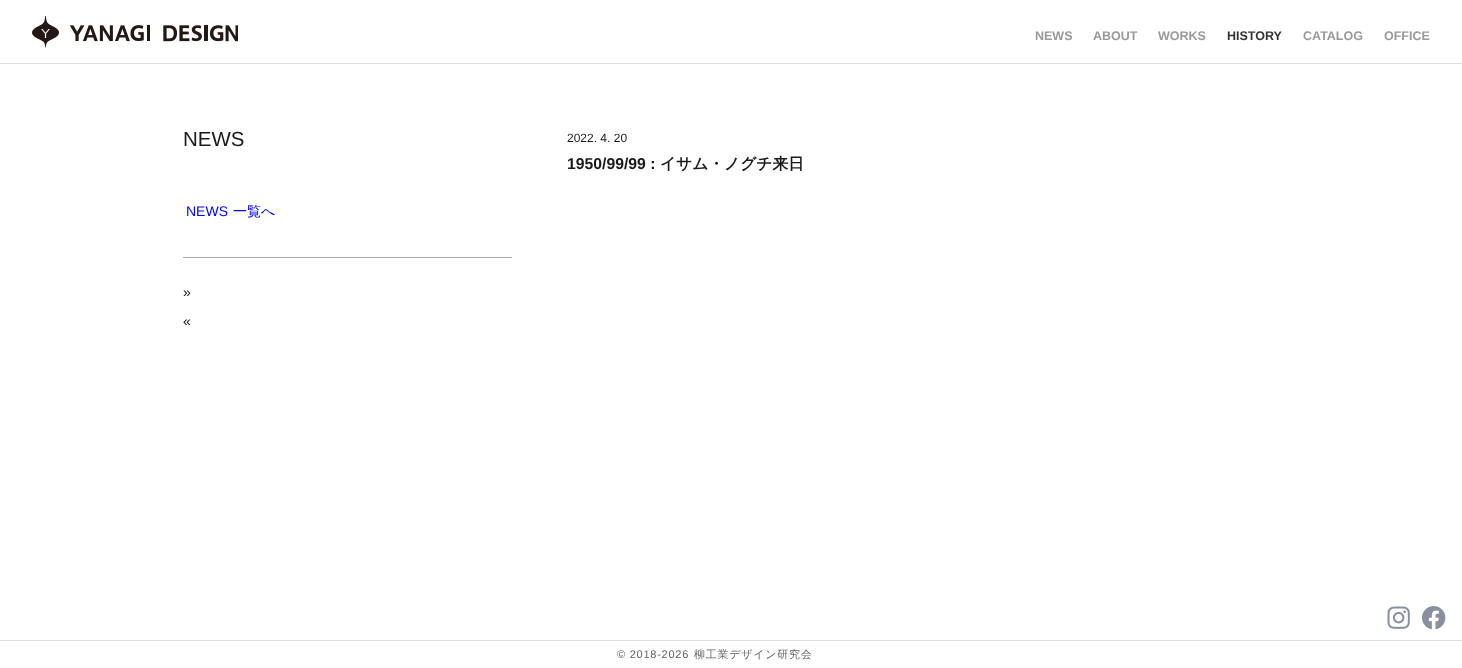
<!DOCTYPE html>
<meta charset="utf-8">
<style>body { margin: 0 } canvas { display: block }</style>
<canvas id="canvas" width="1462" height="668"></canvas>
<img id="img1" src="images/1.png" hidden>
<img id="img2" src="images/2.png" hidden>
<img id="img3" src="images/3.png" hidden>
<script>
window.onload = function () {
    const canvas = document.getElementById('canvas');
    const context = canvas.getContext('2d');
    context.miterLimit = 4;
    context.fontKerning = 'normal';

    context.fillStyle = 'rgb(255, 255, 255)';
    context.fillRect(0, 0, 1462, 668);
    context.fillStyle = 'rgb(224, 224, 224)';
    context.fillRect(0, 63, 1462, 1);
    context.drawImage(document.getElementById('img1'), 32, 16, 206, 32);
    context.fillStyle = 'rgb(170, 170, 170)';
    context.fillRect(183, 257, 329, 1);
    context.drawImage(document.getElementById('img2'), 1387, 606, 23, 23);
    context.drawImage(document.getElementById('img3'), 1422, 606, 24, 24);
    context.fillStyle = 'rgb(224, 224, 224)';
    context.fillRect(0, 640, 1462, 1);
    context.font = 'bold 12.5px Liberation Sans';
    context.fillStyle = 'rgb(153, 153, 153)';
    context.fillText('NEWS', 1035, 40);
    context.fillText('ABOUT', 1093, 40);
    context.fillText('WORKS', 1158, 40);
    context.fillStyle = 'rgb(51, 51, 51)';
    context.fillText('HISTORY', 1227, 40);
    context.fillStyle = 'rgb(153, 153, 153)';
    context.fillText('CATALOG', 1303, 40);
    context.fillText('OFFICE', 1384, 40);
    context.font = '20.5px Liberation Sans';
    context.fillStyle = 'rgb(26, 26, 26)';
    context.fillText('NEWS', 183, 146);
    context.font = '14px Liberation Sans';
    context.fillStyle = 'rgb(0, 0, 238)';
    context.fillText('NEWS', 186, 216);
    context.font = '500 14px WenQuanYi Zen Hei';
    context.fillText('一覧へ', 233, 216);
    context.font = '14px Liberation Sans';
    context.fillStyle = 'rgb(26, 26, 26)';
    context.fillText('»', 183, 297);
    context.fillText('«', 183, 326);
    context.font = '12px Liberation Sans';
    context.fillText('2022. 4. 20', 567, 142);
    context.font = 'bold 15.75px Liberation Sans';
    context.fillText('1950/99/99 :', 567, 169);
    context.font = 'bold 15.75px WenQuanYi Zen Hei';
    context.fillText('イサム・ノグチ来日', 660, 169);
    context.letterSpacing = '0.75px';
    context.font = '11px Liberation Sans';
    context.fillStyle = 'rgb(102, 102, 102)';
    context.fillText('© 2018-2026', 617, 658);
    context.font = '500 11px WenQuanYi Zen Hei';
    context.fillText('柳工業デザイン研究会', 694, 658);
};
</script>
